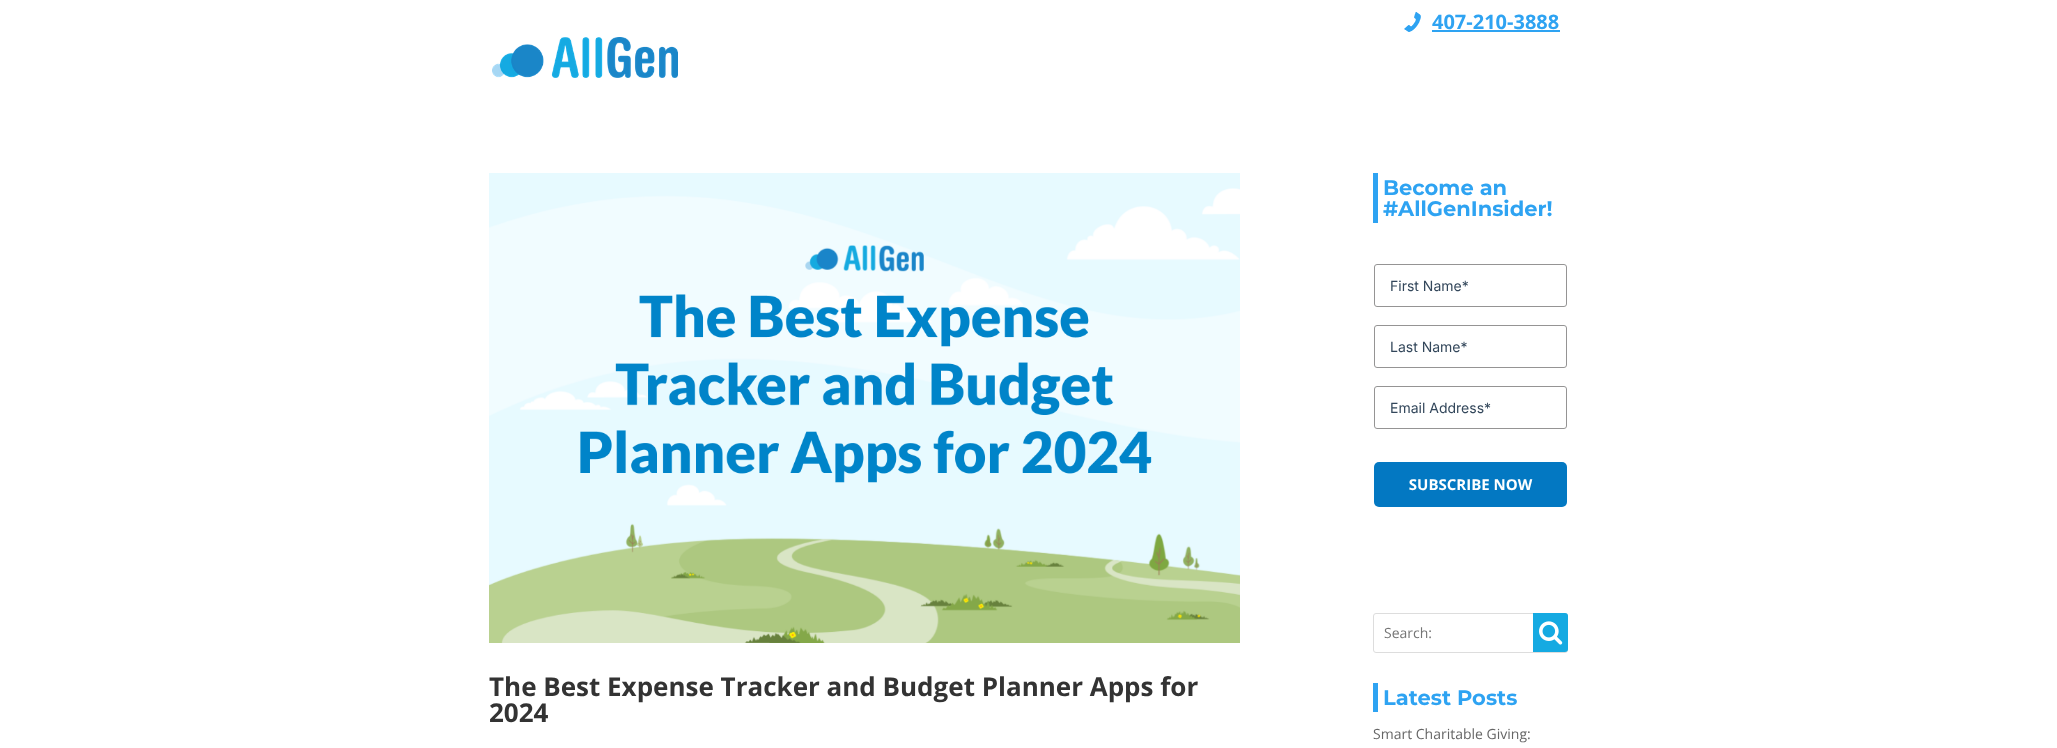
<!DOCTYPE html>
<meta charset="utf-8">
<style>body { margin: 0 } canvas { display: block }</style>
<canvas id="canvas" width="2057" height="748"></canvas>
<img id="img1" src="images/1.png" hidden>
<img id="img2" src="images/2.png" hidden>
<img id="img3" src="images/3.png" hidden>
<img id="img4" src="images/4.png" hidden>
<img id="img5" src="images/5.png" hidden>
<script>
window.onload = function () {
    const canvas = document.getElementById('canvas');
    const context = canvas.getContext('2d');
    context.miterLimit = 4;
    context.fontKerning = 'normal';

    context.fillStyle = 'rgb(255, 255, 255)';
    context.fillRect(0, 0, 2057, 748);
    context.drawImage(document.getElementById('img1'), 1404, 12, 17, 20);
    context.fillStyle = 'rgb(46, 163, 242)';
    context.fillRect(1432, 30, 128, 2);
    context.drawImage(document.getElementById('img2'), 492, 37, 186, 41);
    context.drawImage(document.getElementById('img3'), 489, 173, 751, 470);
    context.fillRect(1373, 173, 5, 50);
    context.drawImage(document.getElementById('img4'), 1374, 264, 193, 243);
    context.beginPath();
    context.roundRect(1373.5, 613.5, 194, 39, 2.5);
    context.strokeStyle = 'rgb(221, 221, 221)';
    context.stroke();
    context.fillStyle = 'rgb(21, 170, 226)';
    context.beginPath();
    context.roundRect(1533, 613, 35, 39, [0, 3, 3, 0]);
    context.fill();
    context.drawImage(document.getElementById('img5'), 1539, 621, 24, 24);
    context.fillStyle = 'rgb(46, 163, 242)';
    context.fillRect(1373, 683, 5, 29);
    context.font = 'bold 20px Open Sans';
    context.fillText('407-210-3888', 1432, 29);
    context.font = 'bold 26px Open Sans';
    context.fillStyle = 'rgb(51, 51, 51)';
    context.fillText('The Best Expense Tracker and Budget Planner Apps for', 489, 696);
    context.fillText('2024', 489, 722);
    context.font = 'bold 21px Montserrat';
    context.fillStyle = 'rgb(46, 163, 242)';
    context.fillText('Become an', 1383, 195);
    context.fillText('#AllGenInsider!', 1383, 216);
    context.font = '14px Open Sans';
    context.fillStyle = 'rgb(117, 117, 117)';
    context.fillText('Search:', 1384, 638);
    context.font = 'bold 21px Montserrat';
    context.fillStyle = 'rgb(46, 163, 242)';
    context.fillText('Latest Posts', 1383, 705);
    context.font = '14px Open Sans';
    context.fillStyle = 'rgb(102, 102, 102)';
    context.fillText('Smart Charitable Giving:', 1373, 739);
};
</script>
